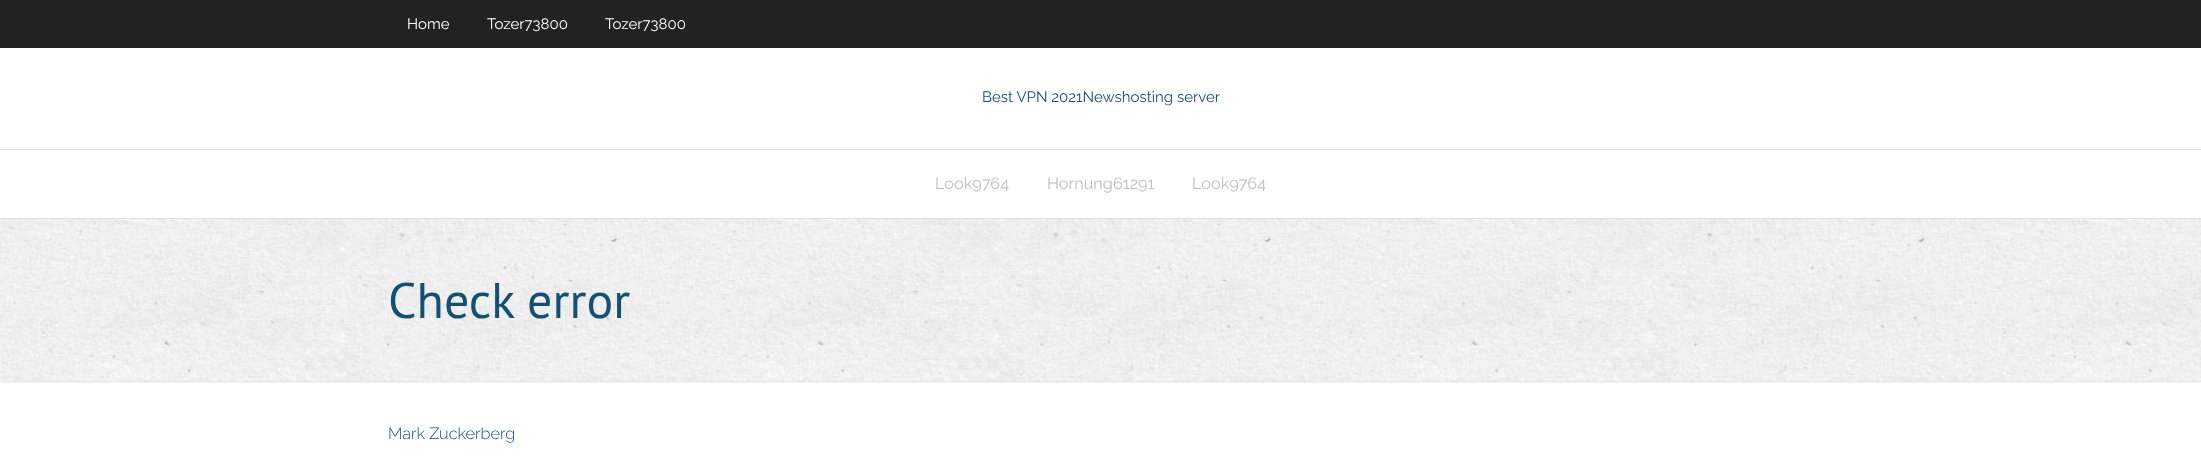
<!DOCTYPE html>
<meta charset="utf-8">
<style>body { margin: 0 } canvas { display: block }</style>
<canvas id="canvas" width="2201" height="460"></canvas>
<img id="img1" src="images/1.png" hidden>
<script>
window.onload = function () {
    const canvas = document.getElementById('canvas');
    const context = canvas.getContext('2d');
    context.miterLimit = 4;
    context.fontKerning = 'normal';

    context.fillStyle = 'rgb(255, 255, 255)';
    context.fillRect(0, 0, 2201, 460);
    context.fillStyle = 'rgb(34, 34, 34)';
    context.fillRect(0, 0, 2201, 48);
    context.fillStyle = 'rgb(225, 225, 225)';
    context.fillRect(0, 149, 2201, 1);
    context.fillRect(0, 218, 2201, 1);
    context.drawImage(document.getElementById('img1'), 0, 219, 2201, 164);
    context.fillStyle = 'rgb(229, 229, 229)';
    context.fillRect(0, 381, 2201, 1);
    context.font = '15px Raleway';
    context.fillStyle = 'rgb(255, 255, 255)';
    context.fillText('Home', 407, 29);
    context.fillText('Tozer73800', 487, 29);
    context.fillText('Tozer73800', 605, 29);
    context.fillStyle = 'rgb(17, 81, 114)';
    context.fillText('Best VPN 2021Newshosting server', 982, 102);
    context.font = '16.25px Raleway';
    context.fillStyle = 'rgb(190, 190, 190)';
    context.fillText('Look9764', 935, 189);
    context.fillText('Hornung61291', 1047, 189);
    context.fillText('Look9764', 1192, 189);
    context.font = '50px PT Sans';
    context.fillStyle = 'rgb(17, 81, 114)';
    context.fillText('Check error', 388, 318);
    context.font = '300 16.25px Raleway';
    context.fillText('Mark Zuckerberg', 388, 439);
};
</script>
